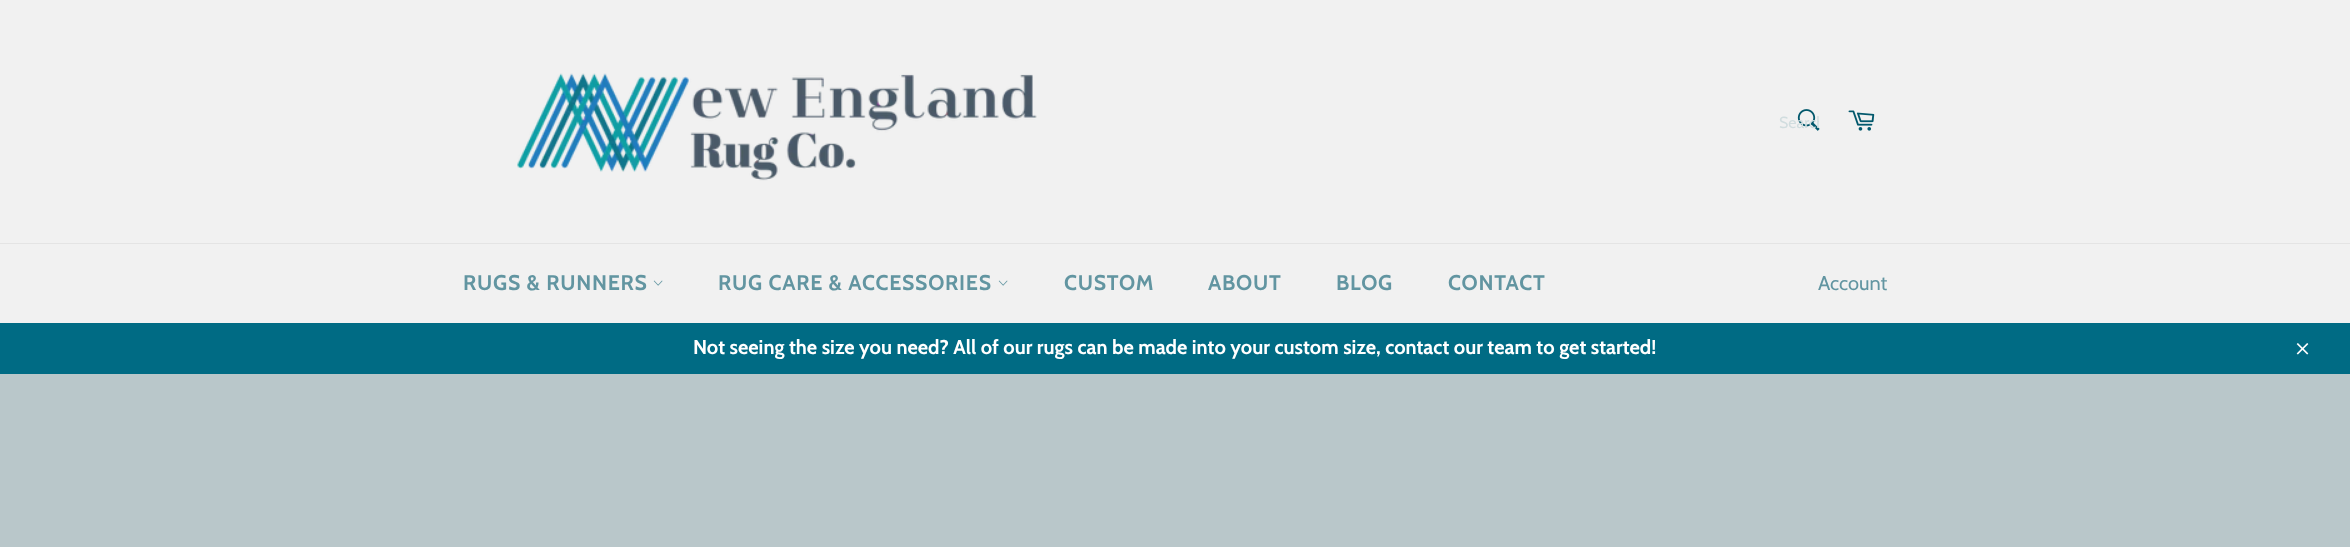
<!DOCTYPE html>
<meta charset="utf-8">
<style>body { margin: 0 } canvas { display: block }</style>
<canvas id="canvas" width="2350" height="547"></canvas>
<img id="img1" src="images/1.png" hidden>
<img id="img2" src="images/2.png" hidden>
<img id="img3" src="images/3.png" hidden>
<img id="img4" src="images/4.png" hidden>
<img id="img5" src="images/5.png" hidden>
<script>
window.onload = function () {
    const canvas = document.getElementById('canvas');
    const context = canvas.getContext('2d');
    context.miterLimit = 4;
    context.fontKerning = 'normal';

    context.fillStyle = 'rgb(185, 199, 202)';
    context.fillRect(0, 0, 2350, 547);
    context.fillStyle = 'rgb(241, 241, 241)';
    context.fillRect(0, 0, 2350, 243);
    context.drawImage(document.getElementById('img1'), 517, 73, 520, 108);
    context.drawImage(document.getElementById('img2'), 1797, 109, 23, 22);
    context.drawImage(document.getElementById('img3'), 1848, 110, 27, 21);
    context.fillRect(0, 244, 2350, 79);
    context.fillStyle = 'rgb(228, 228, 228)';
    context.fillRect(0, 243, 2350, 1);
    context.drawImage(document.getElementById('img4'), 653, 280, 10, 6);
    context.drawImage(document.getElementById('img4'), 998, 280, 10, 6);
    context.fillStyle = 'rgb(0, 107, 132)';
    context.fillRect(0, 323, 2350, 51);
    context.drawImage(document.getElementById('img5'), 2296, 343, 13, 12);
    context.save();
    context.beginPath();
    context.rect(1779, 111, 40, 20);
    context.clip();
    context.font = '16px Cabin';
    context.fillStyle = 'rgb(209, 221, 223)';
    context.fillText('Search', 1779, 128);
    context.restore();
    context.letterSpacing = '0.75px';
    context.font = 'bold 21.25px Cabin';
    context.fillStyle = 'rgb(98, 149, 161)';
    context.fillText('RUGS & RUNNERS', 463, 290);
    context.fillText('RUG CARE & ACCESSORIES', 718, 290);
    context.fillText('CUSTOM', 1064, 290);
    context.fillText('ABOUT', 1208, 290);
    context.fillText('BLOG', 1336, 290);
    context.fillText('CONTACT', 1448, 290);
    context.letterSpacing = '0px';
    context.font = '20px Cabin';
    context.fillText('Account', 1818, 290);
    context.font = 'bold 20px Cabin';
    context.fillStyle = 'rgb(255, 255, 255)';
    context.fillText('Not seeing the size you need? All of our rugs can be made into your custom size, contact our team to get started!', 693, 354);
};
</script>
